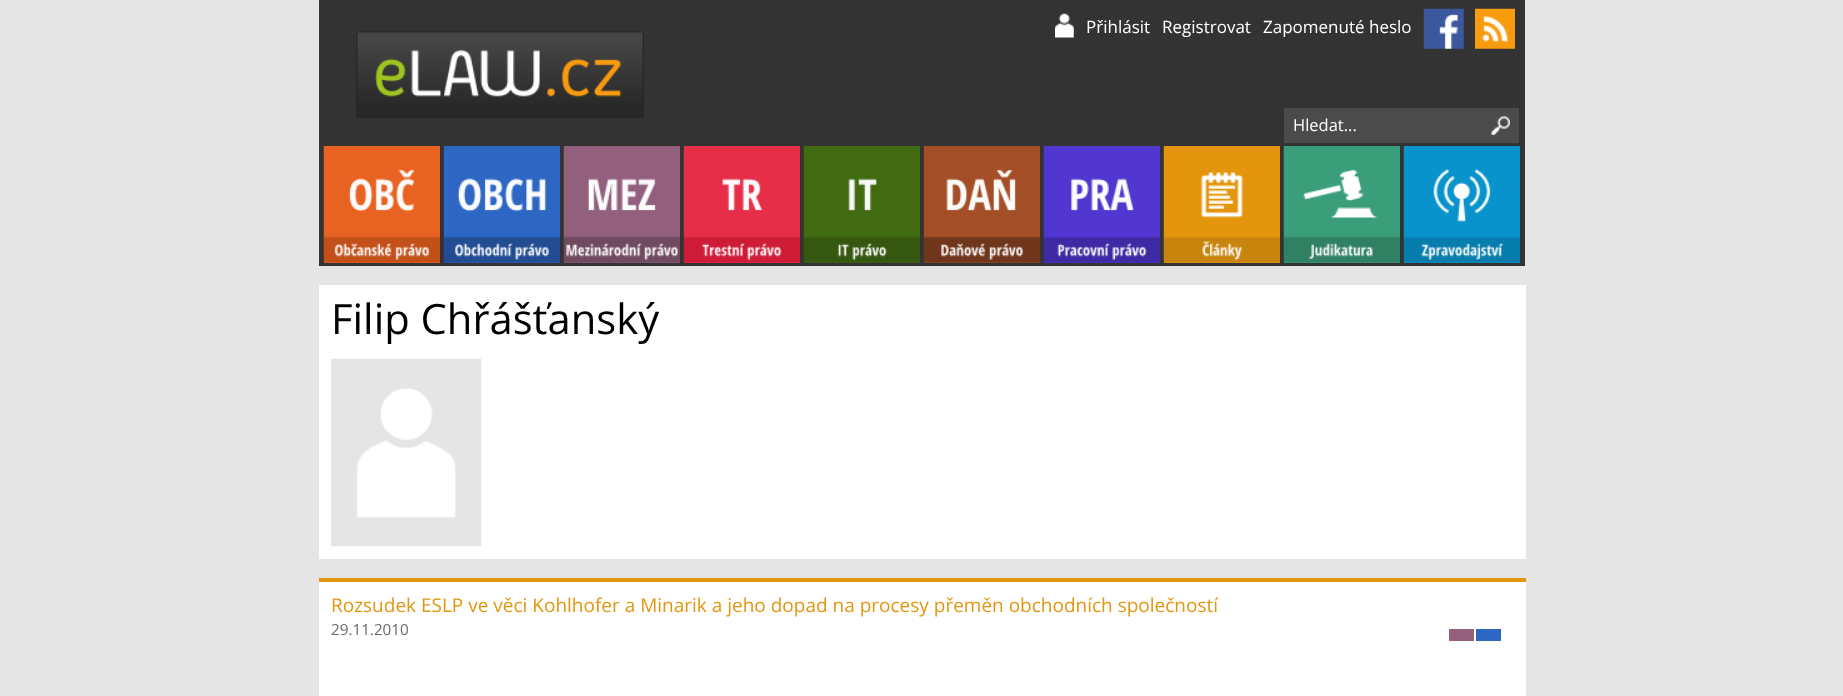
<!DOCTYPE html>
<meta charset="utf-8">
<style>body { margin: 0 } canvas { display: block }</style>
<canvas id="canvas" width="1843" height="696"></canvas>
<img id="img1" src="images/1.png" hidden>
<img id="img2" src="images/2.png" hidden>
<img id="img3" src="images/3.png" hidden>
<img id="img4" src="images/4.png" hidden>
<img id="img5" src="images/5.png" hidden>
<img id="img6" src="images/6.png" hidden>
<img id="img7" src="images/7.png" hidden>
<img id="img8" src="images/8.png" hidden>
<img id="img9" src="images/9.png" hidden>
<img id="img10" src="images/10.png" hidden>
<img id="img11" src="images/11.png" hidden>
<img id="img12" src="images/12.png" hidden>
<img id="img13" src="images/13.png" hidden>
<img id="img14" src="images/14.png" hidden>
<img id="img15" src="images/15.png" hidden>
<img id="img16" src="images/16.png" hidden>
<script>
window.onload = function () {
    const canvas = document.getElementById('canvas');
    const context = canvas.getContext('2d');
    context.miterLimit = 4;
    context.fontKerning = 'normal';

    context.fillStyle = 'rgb(229, 229, 229)';
    context.fillRect(0, 0, 1843, 696);
    context.fillStyle = 'rgb(51, 51, 51)';
    context.fillRect(319, 0, 1206, 266);
    context.drawImage(document.getElementById('img1'), 1055, 13, 19, 25);
    context.drawImage(document.getElementById('img2'), 1423, 8, 41, 41);
    context.drawImage(document.getElementById('img3'), 1475, 8, 40, 41);
    context.drawImage(document.getElementById('img4'), 356, 31, 288, 87);
    context.fillStyle = 'rgb(75, 75, 75)';
    context.fillRect(1284, 108, 235, 35);
    context.drawImage(document.getElementById('img5'), 1491, 116, 19, 19);
    context.fillStyle = 'rgb(232, 98, 35)';
    context.fillRect(324, 146, 116, 117);
    context.drawImage(document.getElementById('img6'), 323, 146, 117, 117);
    context.fillStyle = 'rgb(45, 103, 195)';
    context.fillRect(444, 146, 116, 117);
    context.drawImage(document.getElementById('img7'), 443, 146, 117, 117);
    context.fillStyle = 'rgb(146, 95, 125)';
    context.fillRect(564, 146, 116, 117);
    context.drawImage(document.getElementById('img8'), 563, 146, 117, 117);
    context.fillStyle = 'rgb(230, 46, 73)';
    context.fillRect(684, 146, 116, 117);
    context.drawImage(document.getElementById('img9'), 683, 146, 117, 117);
    context.fillStyle = 'rgb(64, 107, 17)';
    context.fillRect(804, 146, 116, 117);
    context.drawImage(document.getElementById('img10'), 803, 146, 117, 117);
    context.fillStyle = 'rgb(163, 79, 39)';
    context.fillRect(924, 146, 116, 117);
    context.drawImage(document.getElementById('img11'), 923, 146, 117, 117);
    context.fillStyle = 'rgb(82, 55, 208)';
    context.fillRect(1044, 146, 116, 117);
    context.drawImage(document.getElementById('img12'), 1043, 146, 117, 117);
    context.fillStyle = 'rgb(226, 150, 13)';
    context.fillRect(1164, 146, 116, 117);
    context.drawImage(document.getElementById('img13'), 1163, 146, 117, 117);
    context.fillStyle = 'rgb(59, 158, 123)';
    context.fillRect(1284, 146, 116, 117);
    context.drawImage(document.getElementById('img14'), 1283, 146, 117, 117);
    context.fillStyle = 'rgb(8, 147, 204)';
    context.fillRect(1404, 146, 116, 117);
    context.drawImage(document.getElementById('img15'), 1403, 146, 117, 117);
    context.fillStyle = 'rgb(255, 255, 255)';
    context.fillRect(319, 285, 1207, 274);
    context.drawImage(document.getElementById('img16'), 331, 358, 151, 189);
    context.fillRect(319, 582, 1207, 114);
    context.fillStyle = 'rgb(226, 150, 13)';
    context.fillRect(319, 578, 1207, 4);
    context.fillStyle = 'rgb(146, 95, 125)';
    context.fillRect(1449, 629, 25, 12);
    context.fillStyle = 'rgb(45, 103, 195)';
    context.fillRect(1476, 629, 25, 12);
    context.font = '17px Open Sans';
    context.fillStyle = 'rgb(255, 255, 255)';
    context.fillText('Přihlásit', 1086, 33);
    context.fillText('Registrovat', 1162, 33);
    context.fillText('Zapomenuté heslo', 1263, 33);
    context.font = '16.5px Open Sans';
    context.fillText('Hledat...', 1293, 131);
    context.font = '41.75px Open Sans';
    context.fillStyle = 'rgb(0, 0, 0)';
    context.fillText('Filip Chřášťanský', 331, 334);
    context.font = '19px Open Sans';
    context.fillStyle = 'rgb(226, 150, 13)';
    context.fillText('Rozsudek ESLP ve věci Kohlhofer a Minarik a jeho dopad na procesy přeměn obchodních společností', 331, 612);
    context.font = '15.25px Open Sans';
    context.fillStyle = 'rgb(107, 107, 107)';
    context.fillText('29.11.2010', 331, 635);
};
</script>
